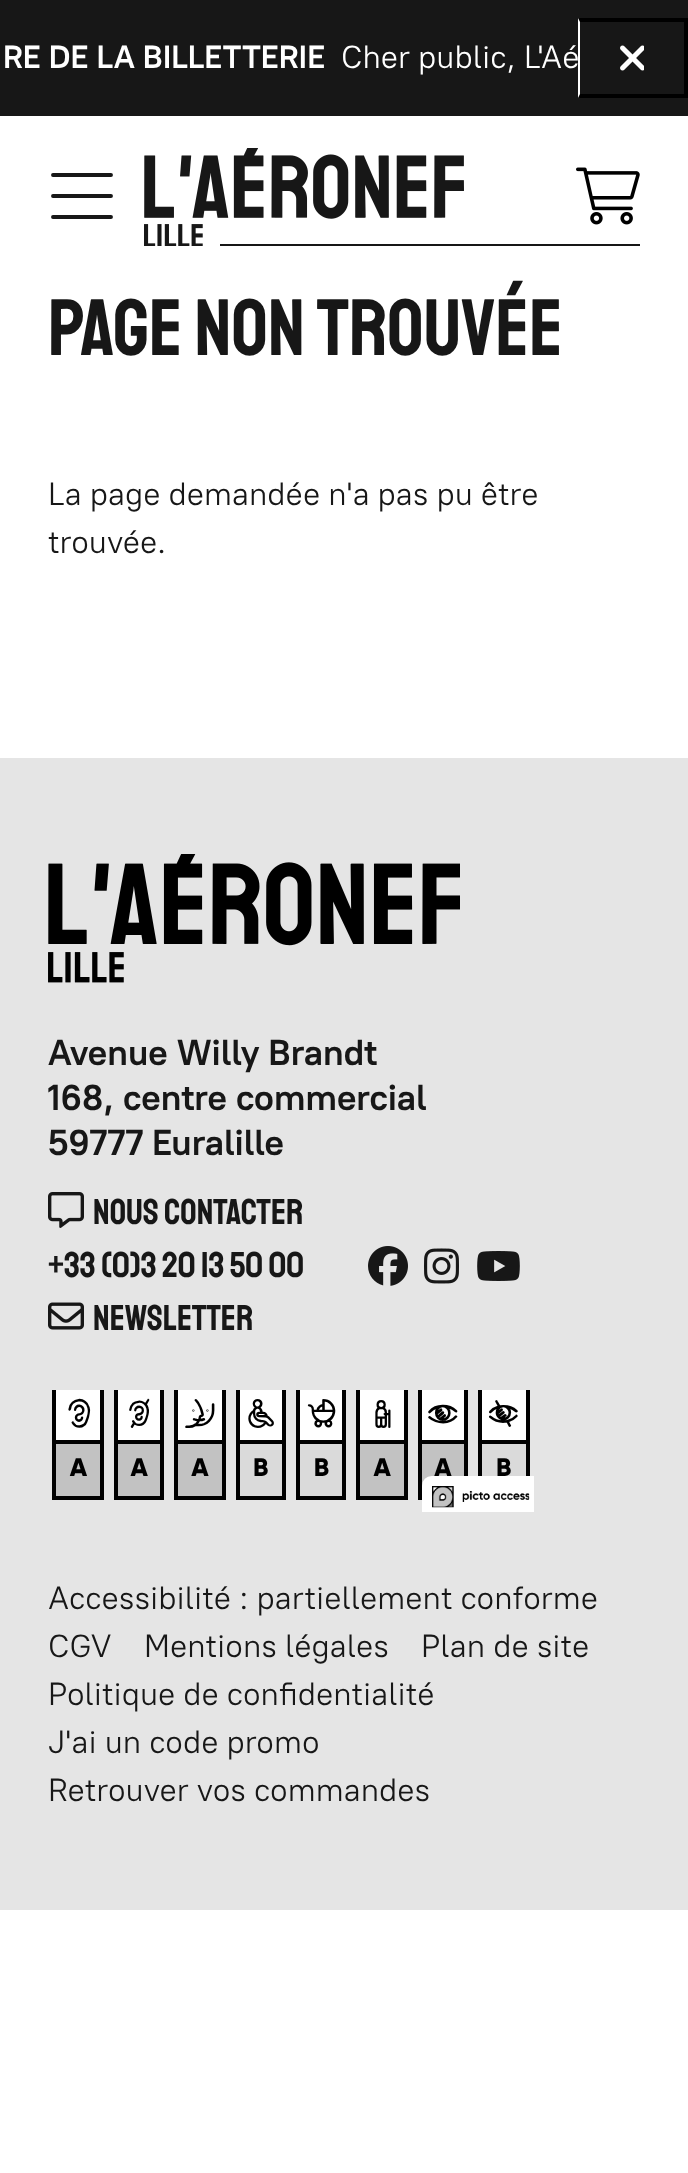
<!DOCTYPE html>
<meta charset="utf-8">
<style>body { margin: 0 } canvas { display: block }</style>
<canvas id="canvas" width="688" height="2173"></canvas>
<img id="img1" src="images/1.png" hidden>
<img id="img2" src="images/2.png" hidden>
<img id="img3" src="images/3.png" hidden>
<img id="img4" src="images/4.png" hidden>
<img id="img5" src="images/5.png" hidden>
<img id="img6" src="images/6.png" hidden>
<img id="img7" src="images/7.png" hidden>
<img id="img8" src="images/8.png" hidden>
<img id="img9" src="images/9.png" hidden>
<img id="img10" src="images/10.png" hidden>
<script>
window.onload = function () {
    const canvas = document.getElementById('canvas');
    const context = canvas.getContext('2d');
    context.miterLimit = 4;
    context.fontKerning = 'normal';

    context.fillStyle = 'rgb(255, 255, 255)';
    context.fillRect(0, 0, 688, 2173);
    context.fillStyle = 'rgb(23, 23, 23)';
    context.fillRect(0, 0, 688, 116);
    context.fillStyle = 'rgb(0, 0, 0)';
    context.beginPath();
    context.moveTo(578, 18);
    context.lineTo(688, 18);
    context.lineTo(684, 22);
    context.lineTo(580, 22);
    context.closePath();
    context.fill();
    context.fillRect(684, 18, 4, 80);
    context.beginPath();
    context.moveTo(688, 98);
    context.lineTo(578, 98);
    context.lineTo(580, 94);
    context.lineTo(684, 94);
    context.closePath();
    context.fill();
    context.fillStyle = 'rgb(255, 255, 255)';
    context.beginPath();
    context.moveTo(578, 98);
    context.lineTo(578, 18);
    context.lineTo(580, 22);
    context.lineTo(580, 94);
    context.closePath();
    context.fill();
    context.drawImage(document.getElementById('img1'), 620, 45, 24, 26);
    context.fillStyle = 'rgb(23, 23, 23)';
    context.fillRect(220, 244, 420, 2);
    context.drawImage(document.getElementById('img2'), 144, 148, 320, 98);
    context.beginPath();
    context.moveTo(53, 196);
    context.lineTo(111, 196);
    context.moveTo(53, 175);
    context.lineTo(111, 175);
    context.moveTo(53, 217);
    context.lineTo(111, 217);
    context.strokeStyle = 'rgb(23, 23, 23)';
    context.lineWidth = 3.9;
    context.lineCap = 'round';
    context.lineJoin = 'round';
    context.stroke();
    context.drawImage(document.getElementById('img3'), 576, 167, 64, 58);
    context.fillStyle = 'rgb(229, 229, 229)';
    context.fillRect(0, 758, 688, 1152);
    context.drawImage(document.getElementById('img4'), 48, 854, 412, 129);
    context.drawImage(document.getElementById('img5'), 48, 1192, 36, 36);
    context.drawImage(document.getElementById('img6'), 48, 1302, 36, 28);
    context.drawImage(document.getElementById('img7'), 368, 1246, 40, 40);
    context.drawImage(document.getElementById('img8'), 424, 1248, 35, 36);
    context.drawImage(document.getElementById('img9'), 477, 1251, 43, 30);
    context.drawImage(document.getElementById('img10'), 52, 1390, 482, 122);
    context.font = 'bold 32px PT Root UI';
    context.fillStyle = 'rgb(255, 255, 255)';
    context.fillText('RE DE LA BILLETTERIE', 3, 68);
    context.font = '32px PT Root UI';
    context.fillText('Cher public, L\'Aé', 341, 68);
    context.font = '80px Staatliches';
    context.fillStyle = 'rgb(23, 23, 23)';
    context.fillText('Page non trouvée', 48, 355);
    context.font = '32px PT Root UI';
    context.fillText('La page demandée n\'a pas pu être', 48, 505);
    context.fillText('trouvée.', 48, 553);
    context.font = 'bold 36px PT Root UI';
    context.fillText('Avenue Willy Brandt', 48, 1065);
    context.fillText('168, centre commercial', 48, 1110);
    context.fillText('59777 Euralille', 48, 1155);
    context.font = '36px Staatliches';
    context.fillText('NOUS CONTACTER', 93, 1224);
    context.fillText('+33 (0)3 20 13 50 00', 48, 1277);
    context.fillText('NEWSLETTER', 93, 1330);
    context.font = '32px PT Root UI';
    context.fillText('Accessibilité : partiellement conforme', 48, 1609);
    context.fillText('CGV', 48, 1657);
    context.fillText('Mentions légales', 144, 1657);
    context.fillText('Plan de site', 421, 1657);
    context.fillText('Politique de confidentialité', 48, 1705);
    context.fillText('J\'ai un code promo', 48, 1753);
    context.fillText('Retrouver vos commandes', 48, 1801);
};
</script>
